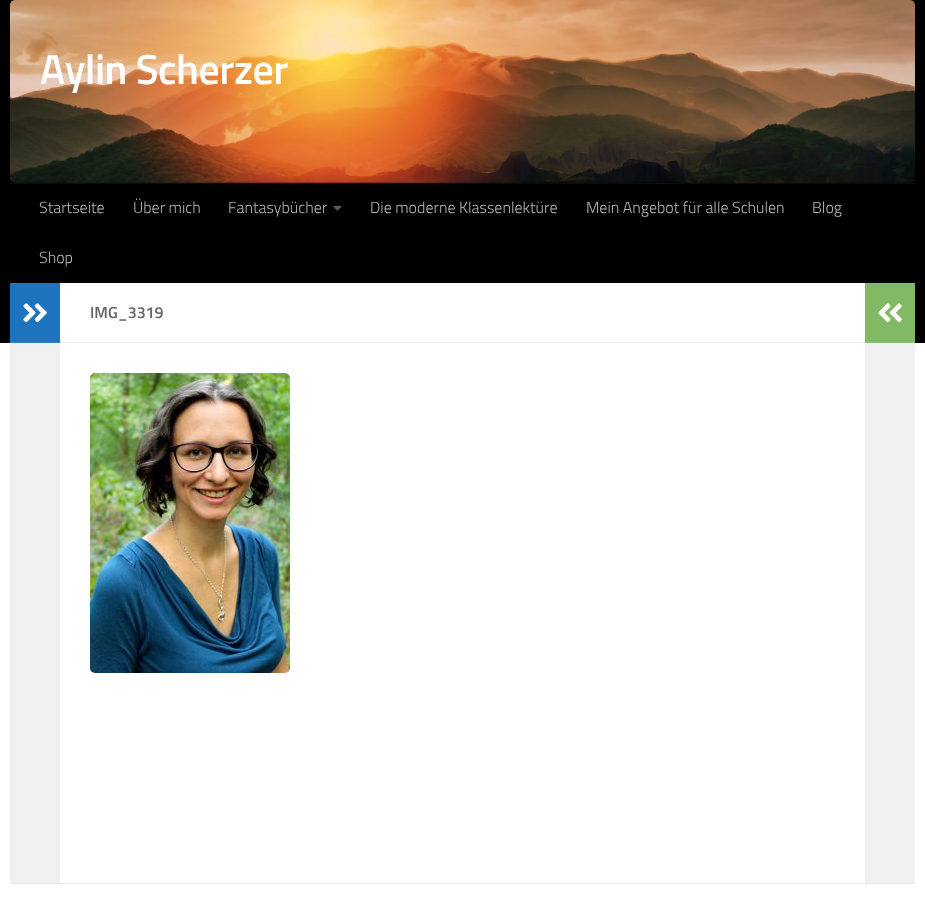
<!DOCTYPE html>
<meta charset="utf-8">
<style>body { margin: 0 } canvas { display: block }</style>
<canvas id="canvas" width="925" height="902"></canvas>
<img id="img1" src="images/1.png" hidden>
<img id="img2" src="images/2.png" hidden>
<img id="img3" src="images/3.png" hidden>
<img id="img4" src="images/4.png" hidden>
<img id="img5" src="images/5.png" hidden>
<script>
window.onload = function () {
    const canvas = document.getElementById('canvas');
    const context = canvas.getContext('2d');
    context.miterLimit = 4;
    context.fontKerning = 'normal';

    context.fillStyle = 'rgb(255, 255, 255)';
    context.fillRect(0, 0, 925, 902);
    context.fillStyle = 'rgba(0, 0, 0, 0.1)';
    context.filter = 'blur(0.5px)';
    context.beginPath();
    context.rect(10, 284, 905, 600);
    context.fill();
    context.filter = 'none';
    context.fillStyle = 'rgb(0, 0, 0)';
    context.fillRect(0, 0, 925, 343);
    context.drawImage(document.getElementById('img1'), 10, 0, 905, 183);
    context.fillStyle = 'rgba(0, 0, 0, 0.2)';
    context.fillRect(10, 182, 905, 1);
    context.fillStyle = 'rgb(13, 13, 13)';
    context.fillRect(10, 183, 905, 1);
    context.drawImage(document.getElementById('img2'), 333, 206, 9, 5);
    context.fillStyle = 'rgb(255, 255, 255)';
    context.fillRect(60, 283, 805, 600);
    context.fillStyle = 'rgb(30, 115, 190)';
    context.fillRect(10, 283, 50, 59);
    context.fillStyle = 'rgb(53, 129, 197)';
    context.fillRect(10, 342, 50, 1);
    context.drawImage(document.getElementById('img3'), 23, 303, 24, 20);
    context.fillStyle = 'rgb(238, 238, 238)';
    context.fillRect(60, 342, 805, 1);
    context.drawImage(document.getElementById('img4'), 90, 373, 200, 300);
    context.fillStyle = 'rgb(130, 185, 101)';
    context.fillRect(865, 283, 50, 59);
    context.fillStyle = 'rgb(143, 192, 116)';
    context.fillRect(865, 342, 50, 1);
    context.drawImage(document.getElementById('img5'), 878, 303, 24, 20);
    context.fillStyle = 'rgb(240, 240, 240)';
    context.fillRect(10, 343, 50, 540);
    context.fillRect(865, 343, 50, 540);
    context.letterSpacing = '-0.5px';
    context.font = '600 42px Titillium';
    context.fillStyle = 'rgb(255, 255, 255)';
    context.fillText('Aylin Scherzer', 40, 84);
    context.letterSpacing = '0px';
    context.font = '300 16px Titillium';
    context.fillStyle = 'rgb(179, 179, 179)';
    context.fillText('Startseite', 39, 213);
    context.fillText('Über mich', 133, 213);
    context.fillText('Fantasybücher', 228, 213);
    context.fillText('Die moderne Klassenlektüre', 370, 213);
    context.fillText('Mein Angebot für alle Schulen', 586, 213);
    context.fillText('Blog', 812, 213);
    context.fillText('Shop', 39, 263);
    context.font = '600 16px Titillium';
    context.fillStyle = 'rgb(102, 102, 102)';
    context.fillText('IMG_3319', 90, 318);
};
</script>
